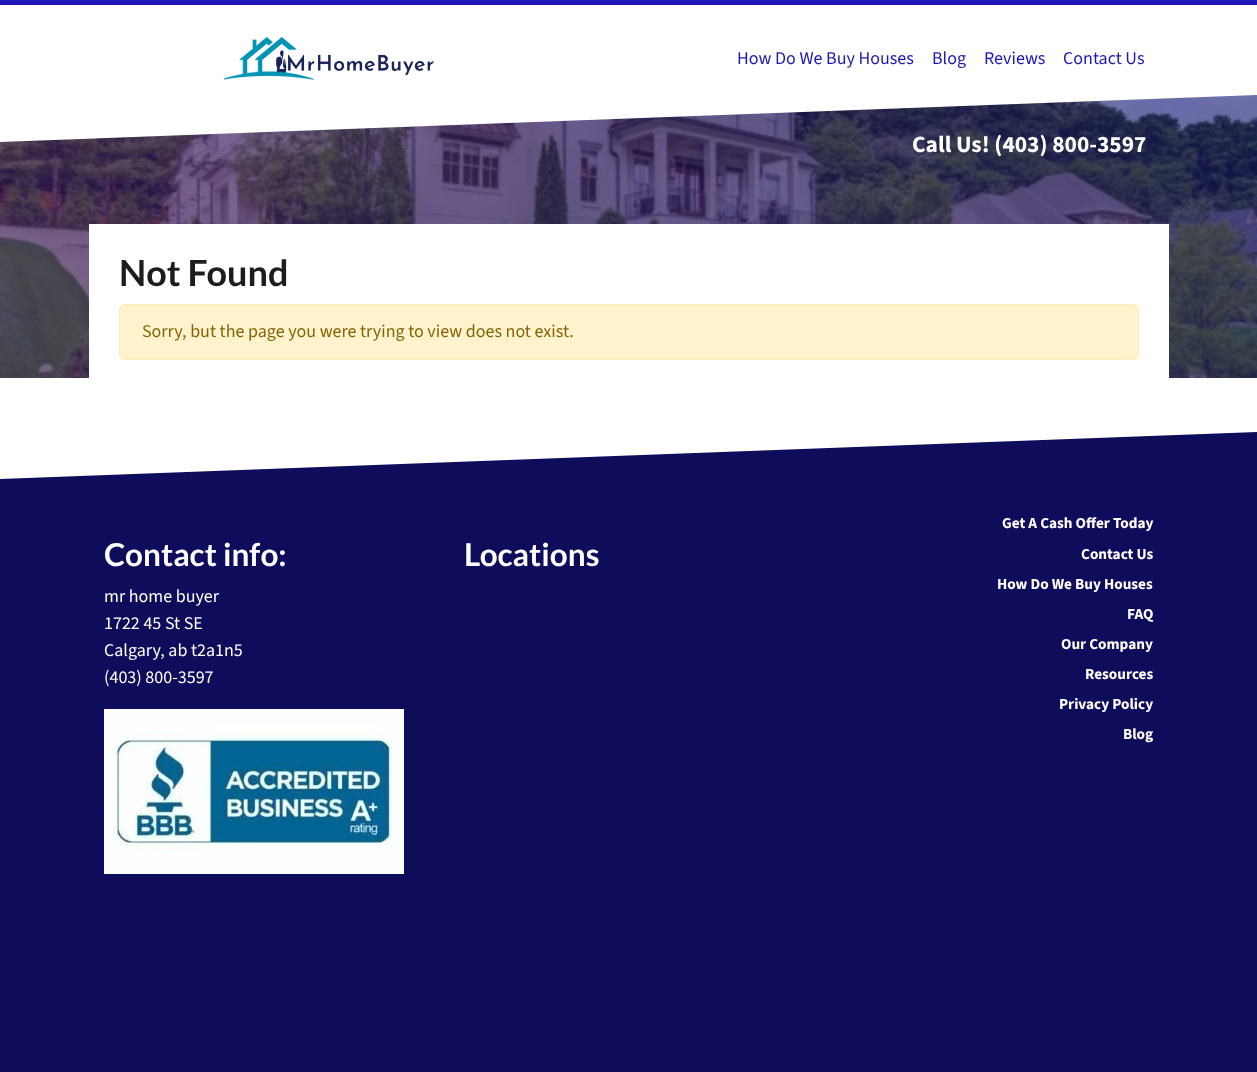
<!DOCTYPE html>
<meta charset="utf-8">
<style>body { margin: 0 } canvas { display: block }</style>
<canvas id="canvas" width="1257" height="1072"></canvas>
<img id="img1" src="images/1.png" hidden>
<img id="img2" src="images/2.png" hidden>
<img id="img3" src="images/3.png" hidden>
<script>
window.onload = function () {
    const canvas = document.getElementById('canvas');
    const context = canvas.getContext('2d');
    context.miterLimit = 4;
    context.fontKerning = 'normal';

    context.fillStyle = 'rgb(255, 255, 255)';
    context.fillRect(0, 0, 1257, 1072);
    context.fillStyle = 'rgb(28, 23, 181)';
    context.fillRect(0, 0, 1257, 5);
    context.drawImage(document.getElementById('img1'), 223, 37, 211, 43);
    context.drawImage(document.getElementById('img2'), 0, 95, 1257, 283);
    context.fillStyle = 'rgb(255, 255, 255)';
    context.beginPath();
    context.moveTo(1257, 95);
    context.lineTo(1257, 92);
    context.lineTo(0, 92);
    context.lineTo(0, 142);
    context.closePath();
    context.fill();
    context.fillRect(89, 224, 1080, 154);
    context.fillStyle = 'rgb(255, 243, 205)';
    context.beginPath();
    context.roundRect(119.5, 304.5, 1019, 55, 4.5);
    context.fill();
    context.strokeStyle = 'rgb(255, 238, 186)';
    context.stroke();
    context.fillStyle = 'rgb(14, 12, 91)';
    context.fillRect(0, 432, 1257, 640);
    context.fillStyle = 'rgb(255, 255, 255)';
    context.beginPath();
    context.moveTo(1257, 432);
    context.lineTo(1257, 429);
    context.lineTo(0, 429);
    context.lineTo(0, 479);
    context.closePath();
    context.fill();
    context.drawImage(document.getElementById('img3'), 104, 709, 300, 165);
    context.font = '18px "Source Sans 3"';
    context.fillStyle = 'rgb(28, 23, 181)';
    context.fillText('How Do We Buy Houses', 737, 64);
    context.fillText('Blog', 932, 64);
    context.fillText('Reviews', 984, 64);
    context.fillText('Contact Us', 1063, 64);
    context.font = 'bold 23.4px "Source Sans 3"';
    context.fillStyle = 'rgb(255, 255, 255)';
    context.fillText('Call Us! (403) 800-3597', 912, 152);
    context.font = 'bold 36px Lato';
    context.fillStyle = 'rgb(29, 29, 29)';
    context.fillText('Not Found', 119, 286);
    context.font = '18px "Source Sans 3"';
    context.fillStyle = 'rgb(133, 100, 4)';
    context.fillText('Sorry, but the page you were trying to view does not exist.', 142, 337);
    context.font = 'bold 31.5px Lato';
    context.fillStyle = 'rgb(255, 255, 255)';
    context.fillText('Contact info:', 104, 566);
    context.font = '18px "Source Sans 3"';
    context.fillText('mr home buyer', 104, 602);
    context.fillText('1722 45 St SE', 104, 629);
    context.fillText('Calgary, ab t2a1n5', 104, 656);
    context.fillText('(403) 800-3597', 104, 683);
    context.font = 'bold 31.5px Lato';
    context.fillText('Locations', 464, 566);
    context.font = 'bold 15.25px "Source Sans 3"';
    context.fillText('Get A Cash Offer Today', 1002, 528);
    context.fillText('Contact Us', 1081, 559);
    context.fillText('How Do We Buy Houses', 997, 589);
    context.fillText('FAQ', 1127, 619);
    context.fillText('Our Company', 1061, 649);
    context.fillText('Resources', 1085, 679);
    context.fillText('Privacy Policy', 1059, 709);
    context.fillText('Blog', 1123, 739);
};
</script>
